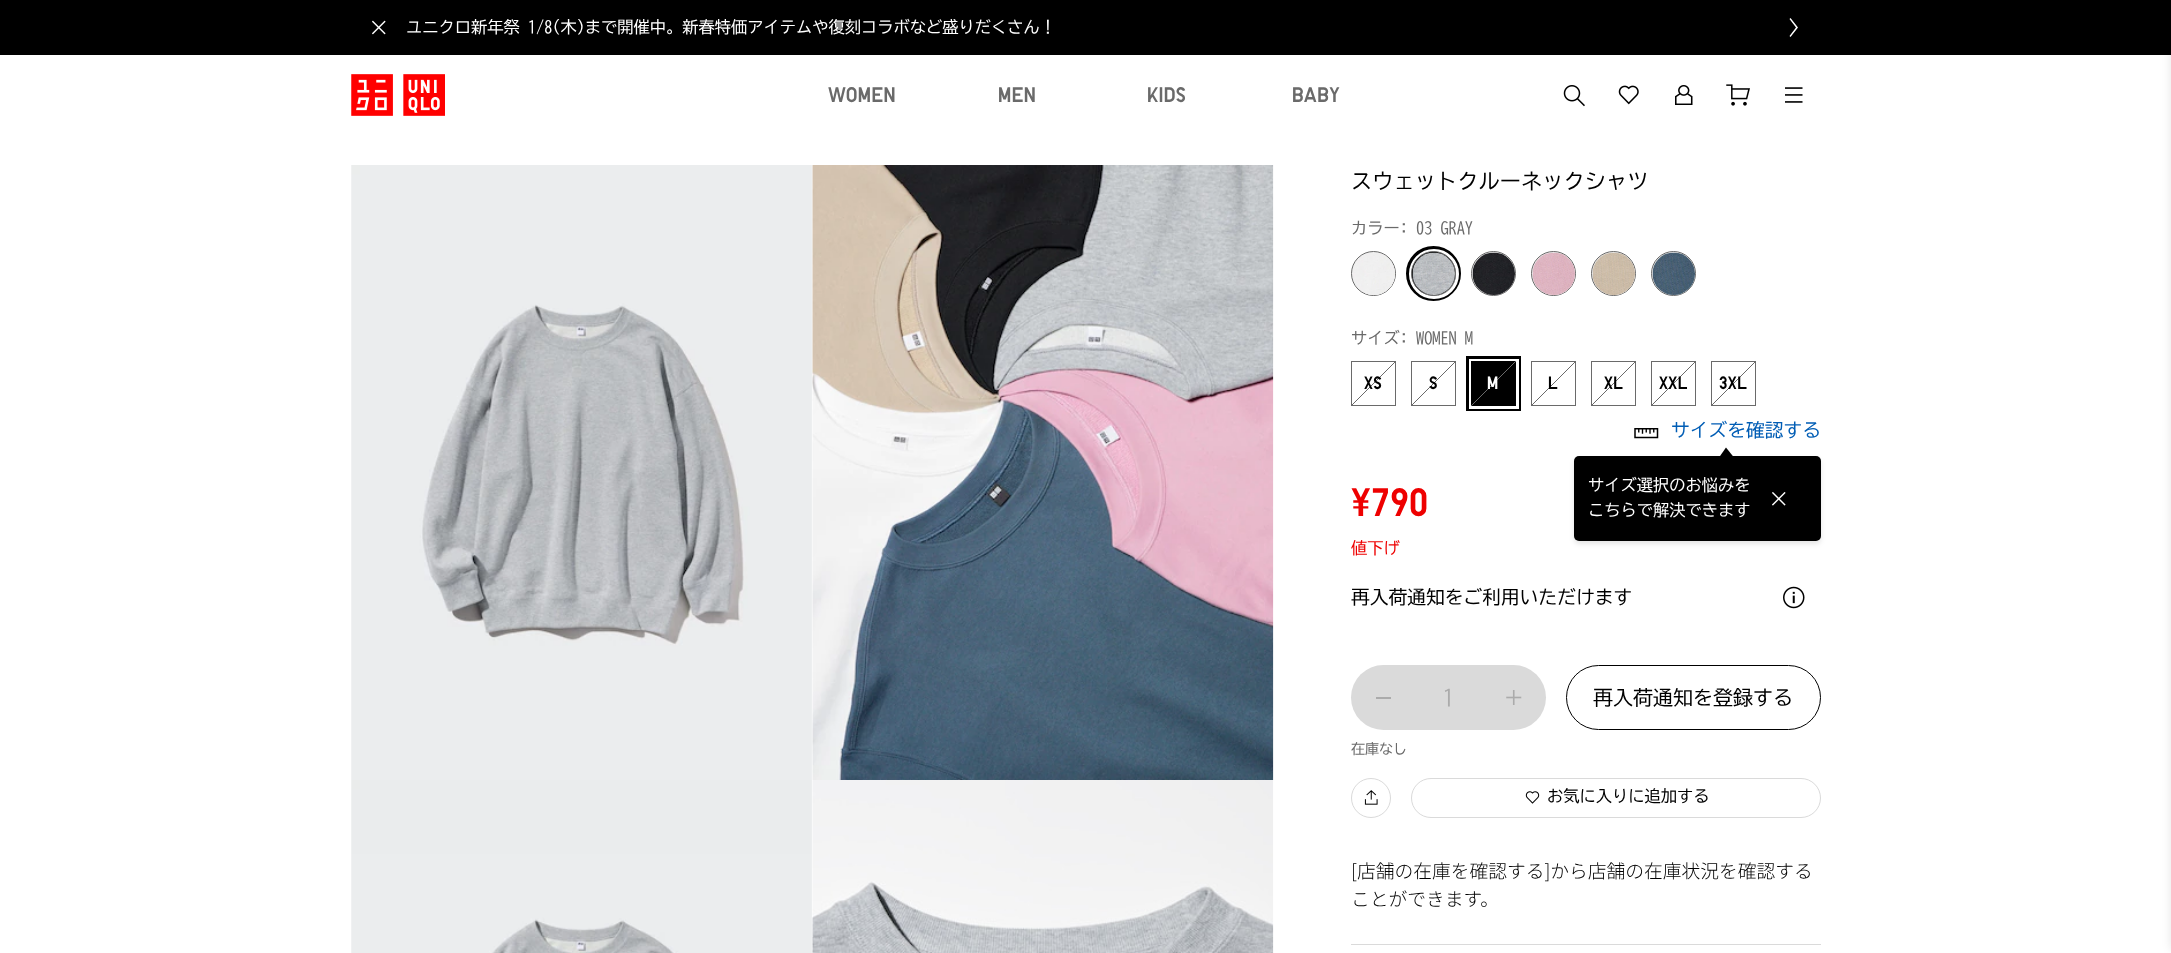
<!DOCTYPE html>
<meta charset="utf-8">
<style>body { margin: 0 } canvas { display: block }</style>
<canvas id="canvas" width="2171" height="953"></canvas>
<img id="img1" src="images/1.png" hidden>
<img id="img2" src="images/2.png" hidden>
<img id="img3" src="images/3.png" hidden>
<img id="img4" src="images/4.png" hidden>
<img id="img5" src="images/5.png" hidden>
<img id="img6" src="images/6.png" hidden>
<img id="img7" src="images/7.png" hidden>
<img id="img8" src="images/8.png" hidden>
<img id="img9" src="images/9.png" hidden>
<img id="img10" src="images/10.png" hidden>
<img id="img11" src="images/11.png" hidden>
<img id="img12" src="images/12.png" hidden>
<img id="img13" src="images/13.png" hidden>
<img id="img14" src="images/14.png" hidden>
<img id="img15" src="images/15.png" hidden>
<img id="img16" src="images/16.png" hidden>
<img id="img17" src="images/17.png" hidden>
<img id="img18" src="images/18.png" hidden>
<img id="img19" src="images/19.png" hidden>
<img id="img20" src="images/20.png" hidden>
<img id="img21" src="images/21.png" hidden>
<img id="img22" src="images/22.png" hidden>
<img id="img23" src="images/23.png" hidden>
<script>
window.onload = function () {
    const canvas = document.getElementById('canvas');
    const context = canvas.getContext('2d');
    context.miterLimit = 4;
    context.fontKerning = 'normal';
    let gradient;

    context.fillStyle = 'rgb(255, 255, 255)';
    context.fillRect(0, 0, 2171, 953);
    context.fillStyle = 'rgb(0, 0, 0)';
    context.fillRect(0, 0, 2171, 55);
    context.drawImage(document.getElementById('img1'), 372, 20, 14, 15);
    context.fillStyle = 'rgb(255, 255, 255)';
    context.beginPath();
    context.moveTo(1790.5, 37);
    context.lineTo(1798, 27.5);
    context.lineTo(1790.5, 18);
    context.lineTo(1789.5, 19);
    context.lineTo(1796, 27.5);
    context.lineTo(1789.5, 36);
    context.closePath();
    context.fill();
    context.drawImage(document.getElementById('img2'), 351, 74, 94, 42);
    context.drawImage(document.getElementById('img3'), 1563, 85, 22, 22);
    context.drawImage(document.getElementById('img4'), 1618, 85, 21, 20);
    context.drawImage(document.getElementById('img5'), 1675, 85, 18, 20);
    context.drawImage(document.getElementById('img6'), 1726, 84, 24, 22);
    context.drawImage(document.getElementById('img7'), 1785, 87, 18, 16);
    context.drawImage(document.getElementById('img8'), 351, 165, 461, 615);
    context.drawImage(document.getElementById('img9'), 812, 165, 462, 615);
    context.drawImage(document.getElementById('img10'), 351, 780, 461, 173);
    context.drawImage(document.getElementById('img11'), 812, 780, 462, 173);
    context.fillStyle = 'rgb(239, 239, 239)';
    context.beginPath();
    context.arc(1373.5, 273.5, 22, 0, 2 * Math.PI);
    context.fill();
    context.strokeStyle = 'rgb(106, 106, 106)';
    context.stroke();
    context.beginPath();
    context.arc(1374, 274, 21, 0, 2 * Math.PI);
    context.fill();
    context.drawImage(document.getElementById('img12'), 1352, 253, 43, 42);
    context.beginPath();
    context.arc(1433.5, 273.5, 25, 0, 2 * Math.PI);
    context.strokeStyle = 'rgb(0, 0, 0)';
    context.lineWidth = 5;
    context.stroke();
    context.beginPath();
    context.arc(1434, 274, 23.5, 0, 2 * Math.PI);
    context.strokeStyle = 'rgb(255, 255, 255)';
    context.lineWidth = 3;
    context.stroke();
    context.fillStyle = 'rgb(0, 0, 0)';
    context.beginPath();
    context.arc(1433.5, 273.5, 22, 0, 2 * Math.PI);
    context.fill();
    context.strokeStyle = 'rgb(106, 106, 106)';
    context.lineWidth = 1;
    context.stroke();
    context.beginPath();
    context.arc(1434, 274, 21, 0, 2 * Math.PI);
    context.fill();
    context.drawImage(document.getElementById('img13'), 1412, 252, 43, 43);
    context.fillStyle = 'rgb(239, 239, 239)';
    context.beginPath();
    context.arc(1493.5, 273.5, 22, 0, 2 * Math.PI);
    context.fill();
    context.stroke();
    context.beginPath();
    context.arc(1494, 274, 21, 0, 2 * Math.PI);
    context.fill();
    context.drawImage(document.getElementById('img14'), 1472, 252, 43, 43);
    context.beginPath();
    context.arc(1553.5, 273.5, 22, 0, 2 * Math.PI);
    context.fill();
    context.stroke();
    context.beginPath();
    context.arc(1554, 274, 21, 0, 2 * Math.PI);
    context.fill();
    context.drawImage(document.getElementById('img15'), 1532, 252, 43, 43);
    context.beginPath();
    context.arc(1613.5, 273.5, 22, 0, 2 * Math.PI);
    context.fill();
    context.stroke();
    context.beginPath();
    context.arc(1614, 274, 21, 0, 2 * Math.PI);
    context.fill();
    context.drawImage(document.getElementById('img16'), 1592, 252, 43, 43);
    context.beginPath();
    context.arc(1673.5, 273.5, 22, 0, 2 * Math.PI);
    context.fill();
    context.stroke();
    context.beginPath();
    context.arc(1674, 274, 21, 0, 2 * Math.PI);
    context.fill();
    context.drawImage(document.getElementById('img17'), 1652, 252, 43, 43);
    context.strokeRect(1351.5, 361.5, 44, 44);
    gradient = context.createLinearGradient(1351, 361, 1396, 406);
    gradient.addColorStop(0.49, 'rgba(106, 106, 106, 0)');
    gradient.addColorStop(0.49, 'rgb(106, 106, 106)');
    gradient.addColorStop(0.51, 'rgb(106, 106, 106)');
    gradient.addColorStop(0.51, 'rgba(106, 106, 106, 0)');
    context.fillStyle = gradient;
    context.fillRect(1352, 362, 43, 43);
    context.strokeRect(1411.5, 361.5, 44, 44);
    gradient = context.createLinearGradient(1411, 361, 1456, 406);
    gradient.addColorStop(0.49, 'rgba(106, 106, 106, 0)');
    gradient.addColorStop(0.49, 'rgb(106, 106, 106)');
    gradient.addColorStop(0.51, 'rgb(106, 106, 106)');
    gradient.addColorStop(0.51, 'rgba(106, 106, 106, 0)');
    context.fillStyle = gradient;
    context.fillRect(1412, 362, 43, 43);
    context.strokeStyle = 'rgb(0, 0, 0)';
    context.lineWidth = 5;
    context.strokeRect(1468.5, 358.5, 50, 50);
    context.strokeStyle = 'rgb(255, 255, 255)';
    context.lineWidth = 3;
    context.strokeRect(1470.5, 360.5, 47, 47);
    context.fillStyle = 'rgb(0, 0, 0)';
    context.fillRect(1471, 361, 45, 45);
    gradient = context.createLinearGradient(1471, 361, 1516, 406);
    gradient.addColorStop(0.49, 'rgba(106, 106, 106, 0)');
    gradient.addColorStop(0.49, 'rgb(106, 106, 106)');
    gradient.addColorStop(0.51, 'rgb(106, 106, 106)');
    gradient.addColorStop(0.51, 'rgba(106, 106, 106, 0)');
    context.fillStyle = gradient;
    context.fillRect(1471, 361, 45, 45);
    context.strokeStyle = 'rgb(106, 106, 106)';
    context.lineWidth = 1;
    context.strokeRect(1531.5, 361.5, 44, 44);
    gradient = context.createLinearGradient(1531, 361, 1576, 406);
    gradient.addColorStop(0.49, 'rgba(106, 106, 106, 0)');
    gradient.addColorStop(0.49, 'rgb(106, 106, 106)');
    gradient.addColorStop(0.51, 'rgb(106, 106, 106)');
    gradient.addColorStop(0.51, 'rgba(106, 106, 106, 0)');
    context.fillStyle = gradient;
    context.fillRect(1532, 362, 43, 43);
    context.strokeRect(1591.5, 361.5, 44, 44);
    gradient = context.createLinearGradient(1591, 361, 1636, 406);
    gradient.addColorStop(0.49, 'rgba(106, 106, 106, 0)');
    gradient.addColorStop(0.49, 'rgb(106, 106, 106)');
    gradient.addColorStop(0.51, 'rgb(106, 106, 106)');
    gradient.addColorStop(0.51, 'rgba(106, 106, 106, 0)');
    context.fillStyle = gradient;
    context.fillRect(1592, 362, 43, 43);
    context.strokeRect(1651.5, 361.5, 44, 44);
    gradient = context.createLinearGradient(1651, 361, 1696, 406);
    gradient.addColorStop(0.49, 'rgba(106, 106, 106, 0)');
    gradient.addColorStop(0.49, 'rgb(106, 106, 106)');
    gradient.addColorStop(0.51, 'rgb(106, 106, 106)');
    gradient.addColorStop(0.51, 'rgba(106, 106, 106, 0)');
    context.fillStyle = gradient;
    context.fillRect(1652, 362, 43, 43);
    context.strokeRect(1711.5, 361.5, 44, 44);
    gradient = context.createLinearGradient(1711, 361, 1756, 406);
    gradient.addColorStop(0.49, 'rgba(106, 106, 106, 0)');
    gradient.addColorStop(0.49, 'rgb(106, 106, 106)');
    gradient.addColorStop(0.51, 'rgb(106, 106, 106)');
    gradient.addColorStop(0.51, 'rgba(106, 106, 106, 0)');
    context.fillStyle = gradient;
    context.fillRect(1712, 362, 43, 43);
    context.drawImage(document.getElementById('img18'), 1634, 428, 25, 11);
    context.fillStyle = 'rgba(0, 0, 0, 0.1)';
    context.filter = 'blur(2.5px)';
    context.beginPath();
    context.roundRect(1574, 459, 247, 85, 5);
    context.fill();
    context.filter = 'none';
    context.fillStyle = 'rgb(0, 0, 0)';
    context.beginPath();
    context.roundRect(1574, 456, 247, 85, 5);
    context.fill();
    context.beginPath();
    context.moveTo(1734, 457.5);
    context.lineTo(1719, 457.5);
    context.lineTo(1726, 447.5);
    context.closePath();
    context.fill();
    context.drawImage(document.getElementById('img19'), 1772, 492, 14, 14);
    context.drawImage(document.getElementById('img20'), 1783, 586, 22, 23);
    context.fillStyle = 'rgb(218, 218, 218)';
    context.beginPath();
    context.roundRect(1351, 665, 195, 65, 32.5);
    context.fill();
    context.fillStyle = 'rgb(171, 171, 171)';
    context.fillRect(1376, 697, 15, 2);
    context.drawImage(document.getElementById('img21'), 1506, 690, 16, 15);
    context.beginPath();
    context.roundRect(1566.5, 665.5, 254, 64, 32);
    context.strokeStyle = 'rgb(0, 0, 0)';
    context.stroke();
    context.beginPath();
    context.arc(1371, 798, 19.5, 0, 2 * Math.PI);
    context.strokeStyle = 'rgb(218, 218, 218)';
    context.stroke();
    context.drawImage(document.getElementById('img22'), 1364, 790, 14, 15);
    context.drawImage(document.getElementById('img23'), 1525, 791, 15, 13);
    context.beginPath();
    context.roundRect(1411.5, 778.5, 409, 39, 19.5);
    context.stroke();
    context.fillStyle = 'rgb(218, 218, 218)';
    context.fillRect(1351, 944, 470, 1);
    context.fillStyle = 'rgba(0, 0, 0, 0.1)';
    context.filter = 'blur(5px)';
    context.beginPath();
    context.roundRect(2171, 0, 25, 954, 10);
    context.fill();
    context.filter = 'none';
    context.font = '16.25px BIZ UDGothic';
    context.fillStyle = 'rgb(255, 255, 255)';
    context.fillText('ユニクロ新年祭 1/8(木)まで開催中。新春特価アイテムや復刻コラボなど盛りだくさん！', 406, 33);
    context.letterSpacing = '0.5px';
    context.font = '21.25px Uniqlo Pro';
    context.fillStyle = 'rgb(106, 106, 106)';
    context.fillText('WOMEN', 828, 102);
    context.fillText('MEN', 998, 102);
    context.fillText('KIDS', 1147, 102);
    context.fillText('BABY', 1292, 102);
    context.letterSpacing = '0px';
    context.font = '21.25px BIZ UDGothic';
    context.fillStyle = 'rgb(0, 0, 0)';
    context.fillText('スウェットクルーネックシャツ', 1351, 189);
    context.font = '16.25px BIZ UDGothic';
    context.fillStyle = 'rgb(106, 106, 106)';
    context.fillText('カラー: 03 GRAY', 1351, 234);
    context.fillText('サイズ: WOMEN M', 1351, 344);
    context.letterSpacing = '0.5px';
    context.font = '18px Uniqlo Pro';
    context.fillStyle = 'rgb(0, 0, 0)';
    context.fillText('XS', 1364, 389);
    context.fillText('S', 1429, 389);
    context.fillStyle = 'rgb(255, 255, 255)';
    context.fillText('M', 1487, 389);
    context.fillStyle = 'rgb(0, 0, 0)';
    context.fillText('L', 1548, 389);
    context.fillText('XL', 1604, 389);
    context.fillText('XXL', 1659, 389);
    context.fillText('3XL', 1719, 389);
    context.letterSpacing = '0px';
    context.font = '18.75px BIZ UDGothic';
    context.fillStyle = 'rgb(0, 93, 181)';
    context.fillText('サイズを確認する', 1671, 437);
    context.font = '16.25px BIZ UDGothic';
    context.fillStyle = 'rgb(255, 255, 255)';
    context.fillText('サイズ選択のお悩みを', 1588, 491);
    context.fillText('こちらで解決できます', 1588, 516);
    context.letterSpacing = '0.5px';
    context.font = '40px Uniqlo Pro';
    context.fillStyle = 'rgb(238, 0, 0)';
    context.fillText('¥790', 1351, 516);
    context.letterSpacing = '0px';
    context.font = '16.25px BIZ UDGothic';
    context.fillText('値下げ', 1351, 554);
    context.font = '18.75px BIZ UDGothic';
    context.fillStyle = 'rgb(0, 0, 0)';
    context.fillText('再入荷通知をご利用いただけます', 1351, 604);
    context.font = '22px BIZ UDGothic';
    context.fillStyle = 'rgb(171, 171, 171)';
    context.fillText('1', 1443, 706);
    context.font = '14px BIZ UDGothic';
    context.fillStyle = 'rgb(106, 106, 106)';
    context.fillText('在庫なし', 1351, 754);
    context.font = '20px BIZ UDGothic';
    context.fillStyle = 'rgb(0, 0, 0)';
    context.fillText('再入荷通知を登録する', 1593, 705);
    context.font = '16.25px BIZ UDGothic';
    context.fillText('お気に入りに追加する', 1547, 802);
    context.font = '300 18.75px Noto Sans CJK JP';
    context.fillText('[店舗の在庫を確認する]から店舗の在庫状況を確認する', 1351, 878);
    context.fillText('ことができます。', 1351, 906);
};
</script>
